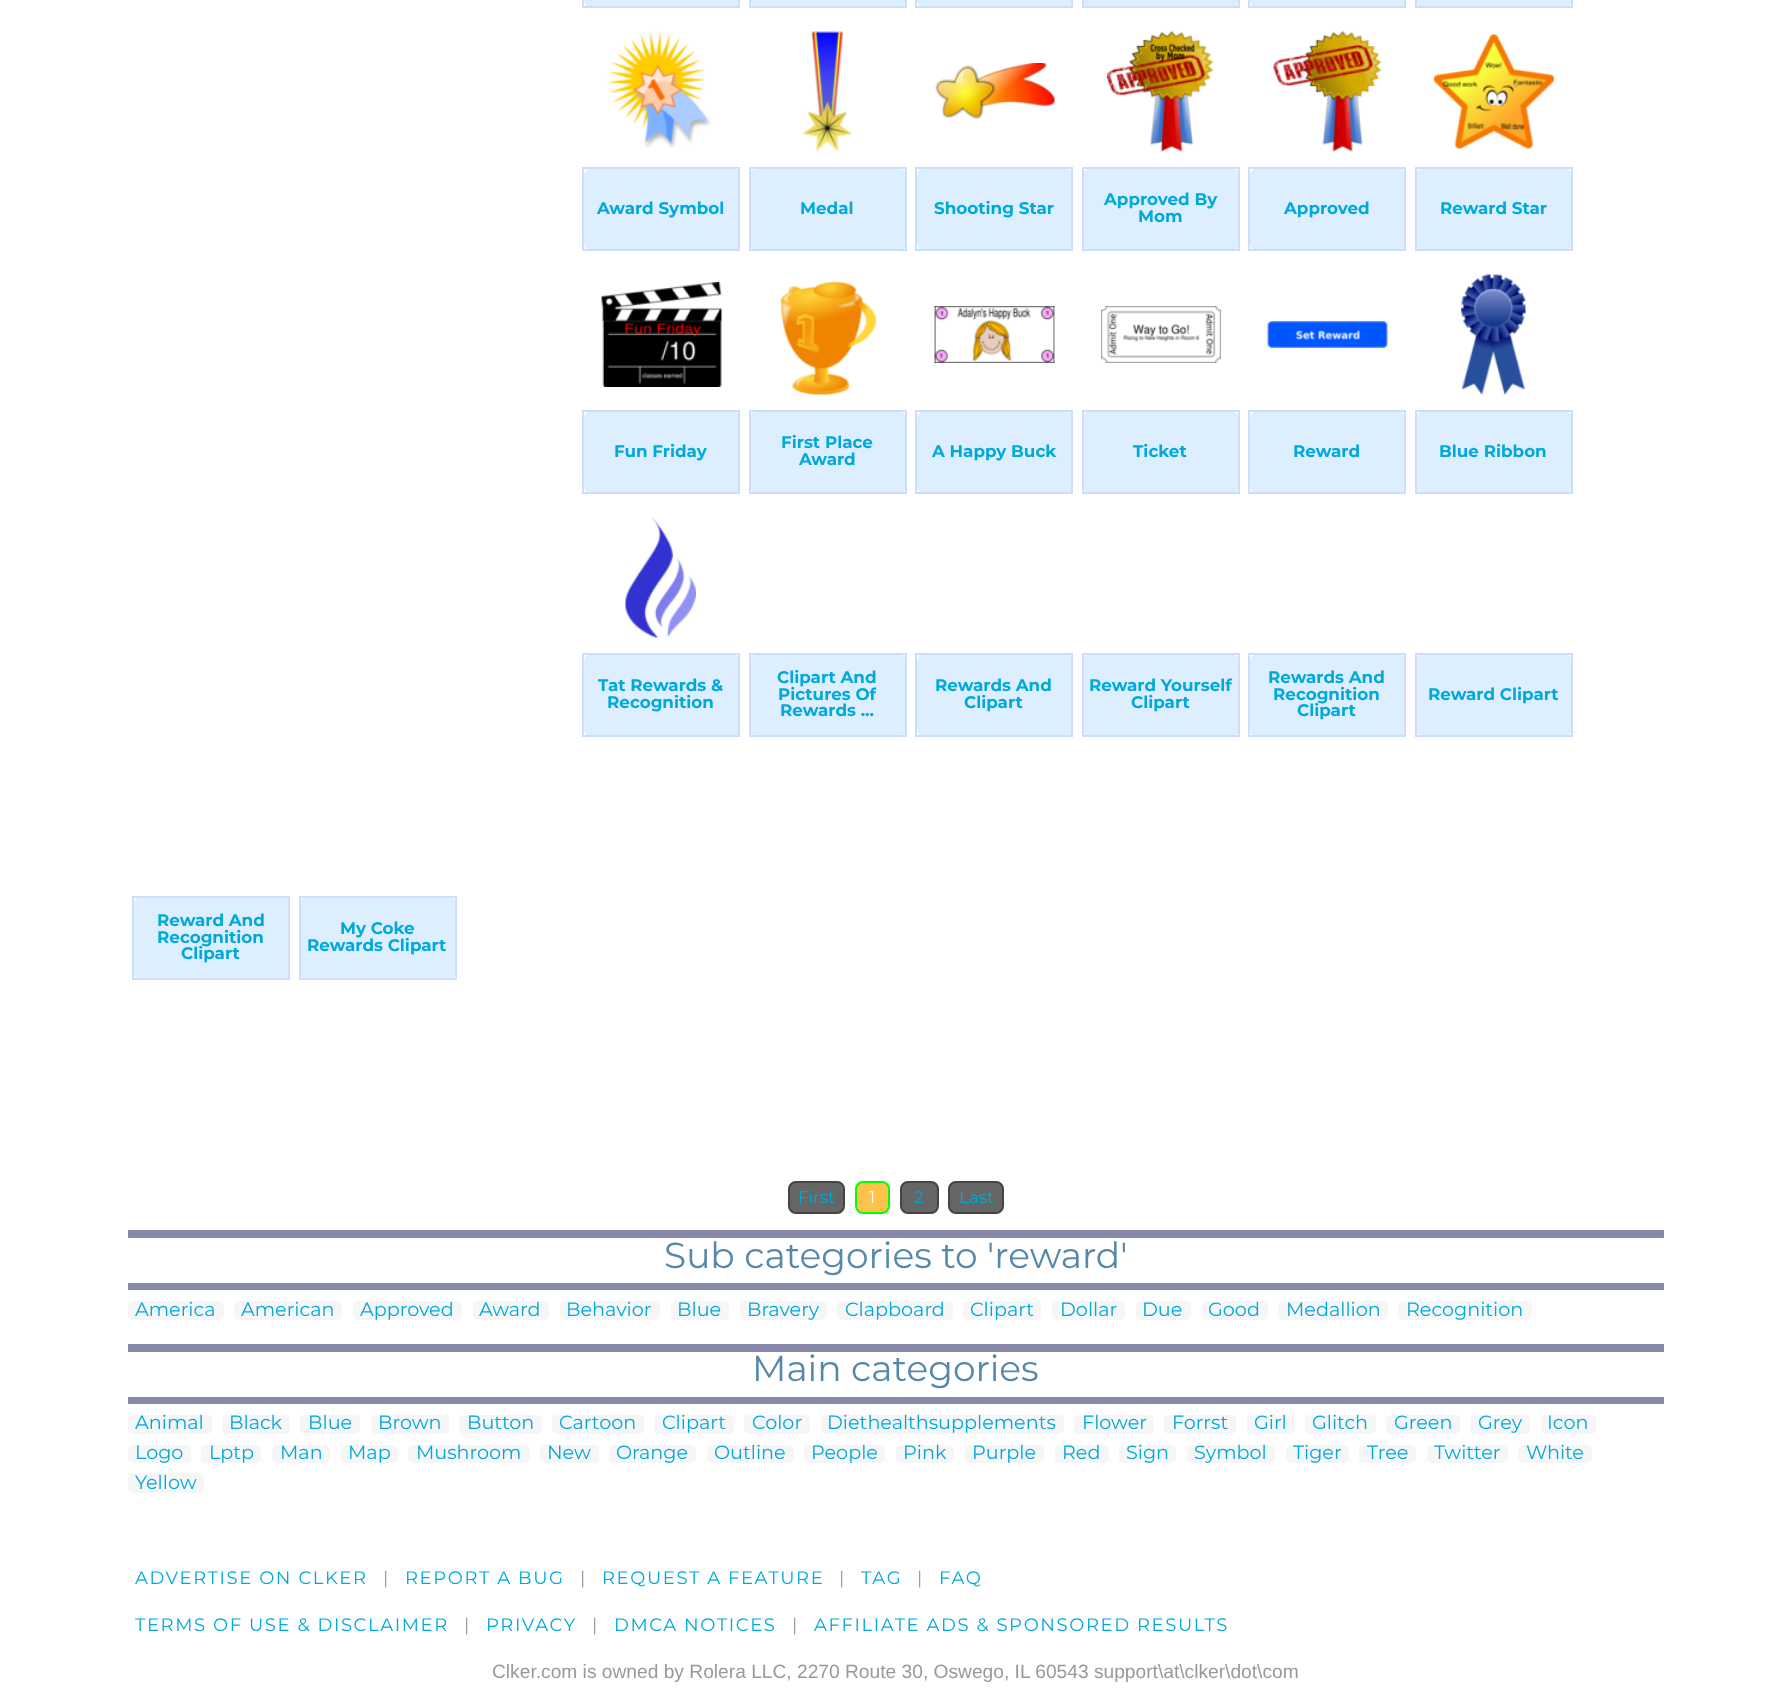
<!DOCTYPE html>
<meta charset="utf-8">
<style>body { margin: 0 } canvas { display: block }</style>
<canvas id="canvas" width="1790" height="1696"></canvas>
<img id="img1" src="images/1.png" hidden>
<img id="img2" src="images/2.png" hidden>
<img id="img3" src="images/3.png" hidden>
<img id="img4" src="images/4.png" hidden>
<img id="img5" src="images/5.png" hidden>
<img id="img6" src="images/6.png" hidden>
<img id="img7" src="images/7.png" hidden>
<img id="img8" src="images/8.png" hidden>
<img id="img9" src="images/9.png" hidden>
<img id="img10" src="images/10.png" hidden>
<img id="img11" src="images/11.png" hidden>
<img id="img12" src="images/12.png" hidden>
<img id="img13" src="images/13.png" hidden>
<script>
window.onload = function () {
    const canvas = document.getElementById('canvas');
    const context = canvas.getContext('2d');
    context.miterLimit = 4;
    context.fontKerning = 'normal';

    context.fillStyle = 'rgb(255, 255, 255)';
    context.fillRect(0, 0, 1790, 1696);
    context.fillStyle = 'rgb(221, 238, 255)';
    context.beginPath();
    context.roundRect(584, -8, 156, 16, 8);
    context.fill();
    context.fillStyle = 'rgb(204, 221, 255)';
    context.fillRect(738, 0, 2, 8);
    context.fillRect(582, 6, 158, 2);
    context.fillRect(582, 0, 2, 8);
    context.fillStyle = 'rgb(221, 238, 255)';
    context.beginPath();
    context.roundRect(750, -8, 156, 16, 8);
    context.fill();
    context.fillStyle = 'rgb(204, 221, 255)';
    context.fillRect(905, 0, 2, 8);
    context.fillRect(749, 6, 157, 2);
    context.fillRect(749, 0, 2, 8);
    context.fillStyle = 'rgb(221, 238, 255)';
    context.beginPath();
    context.roundRect(917, -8, 156, 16, 8);
    context.fill();
    context.fillStyle = 'rgb(204, 221, 255)';
    context.fillRect(1071, 0, 2, 8);
    context.fillRect(915, 6, 158, 2);
    context.fillRect(915, 0, 2, 8);
    context.fillStyle = 'rgb(221, 238, 255)';
    context.beginPath();
    context.roundRect(1083, -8, 156, 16, 8);
    context.fill();
    context.fillStyle = 'rgb(204, 221, 255)';
    context.fillRect(1238, 0, 2, 8);
    context.fillRect(1082, 6, 157, 2);
    context.fillRect(1082, 0, 2, 8);
    context.fillStyle = 'rgb(221, 238, 255)';
    context.beginPath();
    context.roundRect(1250, -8, 156, 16, 8);
    context.fill();
    context.fillStyle = 'rgb(204, 221, 255)';
    context.fillRect(1404, 0, 2, 8);
    context.fillRect(1248, 6, 158, 2);
    context.fillRect(1248, 0, 2, 8);
    context.fillStyle = 'rgb(221, 238, 255)';
    context.beginPath();
    context.roundRect(1416, -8, 156, 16, 8);
    context.fill();
    context.fillStyle = 'rgb(204, 221, 255)';
    context.fillRect(1571, 0, 2, 8);
    context.fillRect(1415, 6, 157, 2);
    context.fillRect(1415, 0, 2, 8);
    context.drawImage(document.getElementById('img1'), 607, 31, 104, 117);
    context.fillStyle = 'rgb(221, 238, 255)';
    context.beginPath();
    context.roundRect(584, 168, 156, 83, 8);
    context.fill();
    context.fillStyle = 'rgb(204, 221, 255)';
    context.fillRect(582, 167, 158, 2);
    context.fillRect(738, 167, 2, 84);
    context.fillRect(582, 249, 158, 2);
    context.fillRect(582, 167, 2, 84);
    context.drawImage(document.getElementById('img2'), 802, 31, 50, 121);
    context.fillStyle = 'rgb(221, 238, 255)';
    context.beginPath();
    context.roundRect(750, 168, 156, 83, 8);
    context.fill();
    context.fillStyle = 'rgb(204, 221, 255)';
    context.fillRect(749, 167, 157, 2);
    context.fillRect(905, 167, 2, 84);
    context.fillRect(749, 249, 157, 2);
    context.fillRect(749, 167, 2, 84);
    context.drawImage(document.getElementById('img3'), 935, 63, 120, 57);
    context.fillStyle = 'rgb(221, 238, 255)';
    context.beginPath();
    context.roundRect(917, 168, 156, 83, 8);
    context.fill();
    context.fillStyle = 'rgb(204, 221, 255)';
    context.fillRect(915, 167, 158, 2);
    context.fillRect(1071, 167, 2, 84);
    context.fillRect(915, 249, 158, 2);
    context.fillRect(915, 167, 2, 84);
    context.drawImage(document.getElementById('img4'), 1107, 31, 107, 121);
    context.fillStyle = 'rgb(221, 238, 255)';
    context.beginPath();
    context.roundRect(1083, 168, 156, 83, 8);
    context.fill();
    context.fillStyle = 'rgb(204, 221, 255)';
    context.fillRect(1082, 167, 157, 2);
    context.fillRect(1238, 167, 2, 84);
    context.fillRect(1082, 249, 157, 2);
    context.fillRect(1082, 167, 2, 84);
    context.drawImage(document.getElementById('img5'), 1273, 31, 109, 121);
    context.fillStyle = 'rgb(221, 238, 255)';
    context.beginPath();
    context.roundRect(1250, 168, 156, 83, 8);
    context.fill();
    context.fillStyle = 'rgb(204, 221, 255)';
    context.fillRect(1248, 167, 158, 2);
    context.fillRect(1404, 167, 2, 84);
    context.fillRect(1248, 249, 158, 2);
    context.fillRect(1248, 167, 2, 84);
    context.drawImage(document.getElementById('img6'), 1434, 34, 120, 115);
    context.fillStyle = 'rgb(221, 238, 255)';
    context.beginPath();
    context.roundRect(1416, 168, 156, 83, 8);
    context.fill();
    context.fillStyle = 'rgb(204, 221, 255)';
    context.fillRect(1415, 167, 157, 2);
    context.fillRect(1571, 167, 2, 84);
    context.fillRect(1415, 249, 157, 2);
    context.fillRect(1415, 167, 2, 84);
    context.drawImage(document.getElementById('img7'), 601, 282, 121, 105);
    context.fillStyle = 'rgb(221, 238, 255)';
    context.beginPath();
    context.roundRect(584, 411, 156, 83, 8);
    context.fill();
    context.fillStyle = 'rgb(204, 221, 255)';
    context.fillRect(582, 410, 158, 2);
    context.fillRect(738, 410, 2, 84);
    context.fillRect(582, 492, 158, 2);
    context.fillRect(582, 410, 2, 84);
    context.drawImage(document.getElementById('img8'), 780, 281, 96, 114);
    context.fillStyle = 'rgb(221, 238, 255)';
    context.beginPath();
    context.roundRect(750, 411, 156, 83, 8);
    context.fill();
    context.fillStyle = 'rgb(204, 221, 255)';
    context.fillRect(749, 410, 157, 2);
    context.fillRect(905, 410, 2, 84);
    context.fillRect(749, 492, 157, 2);
    context.fillRect(749, 410, 2, 84);
    context.drawImage(document.getElementById('img9'), 934, 306, 121, 57);
    context.fillStyle = 'rgb(221, 238, 255)';
    context.beginPath();
    context.roundRect(917, 411, 156, 83, 8);
    context.fill();
    context.fillStyle = 'rgb(204, 221, 255)';
    context.fillRect(915, 410, 158, 2);
    context.fillRect(1071, 410, 2, 84);
    context.fillRect(915, 492, 158, 2);
    context.fillRect(915, 410, 2, 84);
    context.drawImage(document.getElementById('img10'), 1101, 306, 120, 57);
    context.fillStyle = 'rgb(221, 238, 255)';
    context.beginPath();
    context.roundRect(1083, 411, 156, 83, 8);
    context.fill();
    context.fillStyle = 'rgb(204, 221, 255)';
    context.fillRect(1082, 410, 157, 2);
    context.fillRect(1238, 410, 2, 84);
    context.fillRect(1082, 492, 157, 2);
    context.fillRect(1082, 410, 2, 84);
    context.drawImage(document.getElementById('img11'), 1267, 321, 121, 27);
    context.fillStyle = 'rgb(221, 238, 255)';
    context.beginPath();
    context.roundRect(1250, 411, 156, 83, 8);
    context.fill();
    context.fillStyle = 'rgb(204, 221, 255)';
    context.fillRect(1248, 410, 158, 2);
    context.fillRect(1404, 410, 2, 84);
    context.fillRect(1248, 492, 158, 2);
    context.fillRect(1248, 410, 2, 84);
    context.drawImage(document.getElementById('img12'), 1461, 274, 65, 121);
    context.fillStyle = 'rgb(221, 238, 255)';
    context.beginPath();
    context.roundRect(1416, 411, 156, 83, 8);
    context.fill();
    context.fillStyle = 'rgb(204, 221, 255)';
    context.fillRect(1415, 410, 157, 2);
    context.fillRect(1571, 410, 2, 84);
    context.fillRect(1415, 492, 157, 2);
    context.fillRect(1415, 410, 2, 84);
    context.drawImage(document.getElementById('img13'), 625, 517, 71, 121);
    context.fillStyle = 'rgb(221, 238, 255)';
    context.beginPath();
    context.roundRect(584, 654, 156, 83, 8);
    context.fill();
    context.fillStyle = 'rgb(204, 221, 255)';
    context.fillRect(582, 653, 158, 2);
    context.fillRect(738, 653, 2, 84);
    context.fillRect(582, 735, 158, 2);
    context.fillRect(582, 653, 2, 84);
    context.fillStyle = 'rgb(221, 238, 255)';
    context.beginPath();
    context.roundRect(750, 654, 156, 83, 8);
    context.fill();
    context.fillStyle = 'rgb(204, 221, 255)';
    context.fillRect(749, 653, 157, 2);
    context.fillRect(905, 653, 2, 84);
    context.fillRect(749, 735, 157, 2);
    context.fillRect(749, 653, 2, 84);
    context.fillStyle = 'rgb(221, 238, 255)';
    context.beginPath();
    context.roundRect(917, 654, 156, 83, 8);
    context.fill();
    context.fillStyle = 'rgb(204, 221, 255)';
    context.fillRect(915, 653, 158, 2);
    context.fillRect(1071, 653, 2, 84);
    context.fillRect(915, 735, 158, 2);
    context.fillRect(915, 653, 2, 84);
    context.fillStyle = 'rgb(221, 238, 255)';
    context.beginPath();
    context.roundRect(1083, 654, 156, 83, 8);
    context.fill();
    context.fillStyle = 'rgb(204, 221, 255)';
    context.fillRect(1082, 653, 157, 2);
    context.fillRect(1238, 653, 2, 84);
    context.fillRect(1082, 735, 157, 2);
    context.fillRect(1082, 653, 2, 84);
    context.fillStyle = 'rgb(221, 238, 255)';
    context.beginPath();
    context.roundRect(1250, 654, 156, 83, 8);
    context.fill();
    context.fillStyle = 'rgb(204, 221, 255)';
    context.fillRect(1248, 653, 158, 2);
    context.fillRect(1404, 653, 2, 84);
    context.fillRect(1248, 735, 158, 2);
    context.fillRect(1248, 653, 2, 84);
    context.fillStyle = 'rgb(221, 238, 255)';
    context.beginPath();
    context.roundRect(1416, 654, 156, 83, 8);
    context.fill();
    context.fillStyle = 'rgb(204, 221, 255)';
    context.fillRect(1415, 653, 157, 2);
    context.fillRect(1571, 653, 2, 84);
    context.fillRect(1415, 735, 157, 2);
    context.fillRect(1415, 653, 2, 84);
    context.fillStyle = 'rgb(221, 238, 255)';
    context.beginPath();
    context.roundRect(134, 897, 156, 83, 8);
    context.fill();
    context.fillStyle = 'rgb(204, 221, 255)';
    context.fillRect(132, 896, 158, 2);
    context.fillRect(288, 896, 2, 84);
    context.fillRect(132, 978, 158, 2);
    context.fillRect(132, 896, 2, 84);
    context.fillStyle = 'rgb(221, 238, 255)';
    context.beginPath();
    context.roundRect(300, 897, 156, 83, 8);
    context.fill();
    context.fillStyle = 'rgb(204, 221, 255)';
    context.fillRect(299, 896, 157, 2);
    context.fillRect(455, 896, 2, 84);
    context.fillRect(299, 978, 157, 2);
    context.fillRect(299, 896, 2, 84);
    context.fillStyle = 'rgb(102, 102, 102)';
    context.beginPath();
    context.roundRect(789, 1182, 55, 31, 7);
    context.fill();
    context.strokeStyle = 'rgb(68, 68, 68)';
    context.lineWidth = 2;
    context.stroke();
    context.fillStyle = 'rgb(255, 195, 76)';
    context.beginPath();
    context.roundRect(856, 1182, 33, 31, 7);
    context.fill();
    context.strokeStyle = 'rgb(0, 255, 0)';
    context.stroke();
    context.fillStyle = 'rgb(102, 102, 102)';
    context.beginPath();
    context.roundRect(901, 1182, 37, 31, 7);
    context.fill();
    context.strokeStyle = 'rgb(68, 68, 68)';
    context.stroke();
    context.beginPath();
    context.roundRect(949, 1182, 54, 31, 7);
    context.fill();
    context.stroke();
    context.fillStyle = 'rgb(136, 136, 170)';
    context.fillRect(128, 1230, 1536, 8);
    context.fillRect(128, 1283, 1536, 7);
    context.fillStyle = 'rgb(246, 246, 246)';
    context.beginPath();
    context.roundRect(128, 1301, 96, 19, 5);
    context.fill();
    context.beginPath();
    context.roundRect(234, 1301, 108, 19, 5);
    context.fill();
    context.beginPath();
    context.roundRect(353, 1301, 109, 19, 5);
    context.fill();
    context.beginPath();
    context.roundRect(473, 1301, 76, 19, 5);
    context.fill();
    context.beginPath();
    context.roundRect(560, 1301, 100, 19, 5);
    context.fill();
    context.beginPath();
    context.roundRect(671, 1301, 58, 19, 5);
    context.fill();
    context.beginPath();
    context.roundRect(740, 1301, 87, 19, 5);
    context.fill();
    context.beginPath();
    context.roundRect(837, 1301, 116, 19, 5);
    context.fill();
    context.beginPath();
    context.roundRect(963, 1301, 78, 19, 5);
    context.fill();
    context.beginPath();
    context.roundRect(1052, 1301, 73, 19, 5);
    context.fill();
    context.beginPath();
    context.roundRect(1136, 1301, 55, 19, 5);
    context.fill();
    context.beginPath();
    context.roundRect(1202, 1301, 66, 19, 5);
    context.fill();
    context.beginPath();
    context.roundRect(1278, 1301, 110, 19, 5);
    context.fill();
    context.beginPath();
    context.roundRect(1398, 1301, 134, 19, 5);
    context.fill();
    context.fillStyle = 'rgb(136, 136, 170)';
    context.fillRect(128, 1344, 1536, 8);
    context.fillRect(128, 1397, 1536, 7);
    context.fillStyle = 'rgb(246, 246, 246)';
    context.beginPath();
    context.roundRect(128, 1415, 84, 19, 5);
    context.fill();
    context.beginPath();
    context.roundRect(222, 1415, 68, 19, 5);
    context.fill();
    context.beginPath();
    context.roundRect(300, 1415, 60, 19, 5);
    context.fill();
    context.beginPath();
    context.roundRect(371, 1415, 78, 19, 5);
    context.fill();
    context.beginPath();
    context.roundRect(459, 1415, 83, 19, 5);
    context.fill();
    context.beginPath();
    context.roundRect(552, 1415, 92, 19, 5);
    context.fill();
    context.beginPath();
    context.roundRect(654, 1415, 80, 19, 5);
    context.fill();
    context.beginPath();
    context.roundRect(744, 1415, 66, 19, 5);
    context.fill();
    context.beginPath();
    context.roundRect(821, 1415, 243, 19, 5);
    context.fill();
    context.beginPath();
    context.roundRect(1074, 1415, 80, 19, 5);
    context.fill();
    context.beginPath();
    context.roundRect(1164, 1415, 72, 19, 5);
    context.fill();
    context.beginPath();
    context.roundRect(1247, 1415, 48, 19, 5);
    context.fill();
    context.beginPath();
    context.roundRect(1305, 1415, 71, 19, 5);
    context.fill();
    context.beginPath();
    context.roundRect(1386, 1415, 74, 19, 5);
    context.fill();
    context.beginPath();
    context.roundRect(1470, 1415, 60, 19, 5);
    context.fill();
    context.beginPath();
    context.roundRect(1541, 1415, 55, 19, 5);
    context.fill();
    context.beginPath();
    context.roundRect(128, 1445, 63, 18, 5);
    context.fill();
    context.beginPath();
    context.roundRect(201, 1445, 60, 18, 5);
    context.fill();
    context.beginPath();
    context.roundRect(272, 1445, 58, 18, 5);
    context.fill();
    context.beginPath();
    context.roundRect(341, 1445, 57, 18, 5);
    context.fill();
    context.beginPath();
    context.roundRect(408, 1445, 122, 18, 5);
    context.fill();
    context.beginPath();
    context.roundRect(540, 1445, 59, 18, 5);
    context.fill();
    context.beginPath();
    context.roundRect(609, 1445, 87, 18, 5);
    context.fill();
    context.beginPath();
    context.roundRect(707, 1445, 87, 18, 5);
    context.fill();
    context.beginPath();
    context.roundRect(804, 1445, 81, 18, 5);
    context.fill();
    context.beginPath();
    context.roundRect(896, 1445, 58, 18, 5);
    context.fill();
    context.beginPath();
    context.roundRect(965, 1445, 79, 18, 5);
    context.fill();
    context.beginPath();
    context.roundRect(1055, 1445, 54, 18, 5);
    context.fill();
    context.beginPath();
    context.roundRect(1119, 1445, 57, 18, 5);
    context.fill();
    context.beginPath();
    context.roundRect(1187, 1445, 88, 18, 5);
    context.fill();
    context.beginPath();
    context.roundRect(1286, 1445, 63, 18, 5);
    context.fill();
    context.beginPath();
    context.roundRect(1359, 1445, 57, 18, 5);
    context.fill();
    context.beginPath();
    context.roundRect(1427, 1445, 81, 18, 5);
    context.fill();
    context.beginPath();
    context.roundRect(1518, 1445, 74, 18, 5);
    context.fill();
    context.beginPath();
    context.roundRect(128, 1473, 76, 20, 5);
    context.fill();
    context.font = 'bold 16.75px Montserrat';
    context.fillStyle = 'rgb(0, 169, 219)';
    context.fillText('Award Symbol', 597, 214);
    context.fillText('Medal', 800, 214);
    context.fillText('Shooting Star', 934, 214);
    context.fillText('Approved By', 1104, 205);
    context.fillText('Mom', 1138, 222);
    context.fillText('Approved', 1284, 214);
    context.fillText('Reward Star', 1440, 214);
    context.fillText('Fun Friday', 614, 457);
    context.fillText('First Place', 781, 448);
    context.fillText('Award', 799, 465);
    context.fillText('A Happy Buck', 932, 457);
    context.fillText('Ticket', 1133, 457);
    context.fillText('Reward', 1293, 457);
    context.fillText('Blue Ribbon', 1439, 457);
    context.fillText('Tat Rewards &', 598, 691);
    context.fillText('Recognition', 607, 708);
    context.fillText('Clipart And', 777, 683);
    context.fillText('Pictures Of', 778, 700);
    context.fillText('Rewards ...', 780, 716);
    context.fillText('Rewards And', 935, 691);
    context.fillText('Clipart', 964, 708);
    context.fillText('Reward Yourself', 1089, 691);
    context.fillText('Clipart', 1131, 708);
    context.fillText('Rewards And', 1268, 683);
    context.fillText('Recognition', 1273, 700);
    context.fillText('Clipart', 1297, 716);
    context.fillText('Reward Clipart', 1428, 700);
    context.fillText('Reward And', 157, 926);
    context.fillText('Recognition', 157, 943);
    context.fillText('Clipart', 181, 959);
    context.fillText('My Coke', 340, 934);
    context.fillText('Rewards Clipart', 307, 951);
    context.font = '16.75px Montserrat';
    context.fillText('First', 798, 1203);
    context.fillStyle = 'rgb(255, 255, 255)';
    context.fillText('1', 869, 1203);
    context.fillStyle = 'rgb(0, 169, 219)';
    context.fillText('2', 914, 1203);
    context.fillText('Last', 959, 1203);
    context.font = '36px Montserrat';
    context.fillStyle = 'rgb(85, 136, 170)';
    context.fillText('Sub categories to \'reward\'', 664, 1268);
    context.font = '19.2px Montserrat';
    context.fillStyle = 'rgb(0, 169, 219)';
    context.fillText('America', 135, 1316);
    context.fillText('American', 241, 1316);
    context.fillText('Approved', 360, 1316);
    context.fillText('Award', 479, 1316);
    context.fillText('Behavior', 566, 1316);
    context.fillText('Blue', 677, 1316);
    context.fillText('Bravery', 747, 1316);
    context.fillText('Clapboard', 845, 1316);
    context.fillText('Clipart', 970, 1316);
    context.fillText('Dollar', 1060, 1316);
    context.fillText('Due', 1142, 1316);
    context.fillText('Good', 1208, 1316);
    context.fillText('Medallion', 1286, 1316);
    context.fillText('Recognition', 1406, 1316);
    context.font = '36px Montserrat';
    context.fillStyle = 'rgb(85, 136, 170)';
    context.fillText('Main categories', 752, 1381);
    context.font = '19.2px Montserrat';
    context.fillStyle = 'rgb(0, 169, 219)';
    context.fillText('Animal', 135, 1429);
    context.fillText('Black', 229, 1429);
    context.fillText('Blue', 308, 1429);
    context.fillText('Brown', 378, 1429);
    context.fillText('Button', 467, 1429);
    context.fillText('Cartoon', 559, 1429);
    context.fillText('Clipart', 662, 1429);
    context.fillText('Color', 752, 1429);
    context.fillText('Diethealthsupplements', 827, 1429);
    context.fillText('Flower', 1082, 1429);
    context.fillText('Forrst', 1172, 1429);
    context.fillText('Girl', 1254, 1429);
    context.fillText('Glitch', 1312, 1429);
    context.fillText('Green', 1394, 1429);
    context.fillText('Grey', 1478, 1429);
    context.fillText('Icon', 1547, 1429);
    context.fillText('Logo', 135, 1459);
    context.fillText('Lptp', 209, 1459);
    context.fillText('Man', 280, 1459);
    context.fillText('Map', 348, 1459);
    context.fillText('Mushroom', 416, 1459);
    context.fillText('New', 547, 1459);
    context.fillText('Orange', 616, 1459);
    context.fillText('Outline', 714, 1459);
    context.fillText('People', 811, 1459);
    context.fillText('Pink', 903, 1459);
    context.fillText('Purple', 972, 1459);
    context.fillText('Red', 1062, 1459);
    context.fillText('Sign', 1126, 1459);
    context.fillText('Symbol', 1194, 1459);
    context.fillText('Tiger', 1293, 1459);
    context.fillText('Tree', 1367, 1459);
    context.fillText('Twitter', 1434, 1459);
    context.fillText('White', 1526, 1459);
    context.fillText('Yellow', 135, 1489);
    context.letterSpacing = '1.6px';
    context.font = '18px Montserrat';
    context.fillText('ADVERTISE ON CLKER', 135, 1584);
    context.fillStyle = 'rgb(153, 153, 153)';
    context.fillText('|', 383, 1584);
    context.fillStyle = 'rgb(0, 169, 219)';
    context.fillText('REPORT A BUG', 405, 1584);
    context.fillStyle = 'rgb(153, 153, 153)';
    context.fillText('|', 580, 1584);
    context.fillStyle = 'rgb(0, 169, 219)';
    context.fillText('REQUEST A FEATURE', 602, 1584);
    context.fillStyle = 'rgb(153, 153, 153)';
    context.fillText('|', 839, 1584);
    context.fillStyle = 'rgb(0, 169, 219)';
    context.fillText('TAG', 861, 1584);
    context.fillStyle = 'rgb(153, 153, 153)';
    context.fillText('|', 917, 1584);
    context.fillStyle = 'rgb(0, 169, 219)';
    context.fillText('FAQ', 939, 1584);
    context.fillText('TERMS OF USE & DISCLAIMER', 135, 1631);
    context.fillStyle = 'rgb(153, 153, 153)';
    context.fillText('|', 464, 1631);
    context.fillStyle = 'rgb(0, 169, 219)';
    context.fillText('PRIVACY', 486, 1631);
    context.fillStyle = 'rgb(153, 153, 153)';
    context.fillText('|', 592, 1631);
    context.fillStyle = 'rgb(0, 169, 219)';
    context.fillText('DMCA NOTICES', 614, 1631);
    context.fillStyle = 'rgb(153, 153, 153)';
    context.fillText('|', 792, 1631);
    context.fillStyle = 'rgb(0, 169, 219)';
    context.fillText('AFFILIATE ADS & SPONSORED RESULTS', 814, 1631);
    context.letterSpacing = '0px';
    context.font = '19.2px Liberation Sans';
    context.fillStyle = 'rgb(153, 153, 153)';
    context.fillText('Clker.com is owned by Rolera LLC, 2270 Route 30, Oswego, IL 60543 support\\at\\clker\\dot\\com', 492, 1678);
};
</script>
